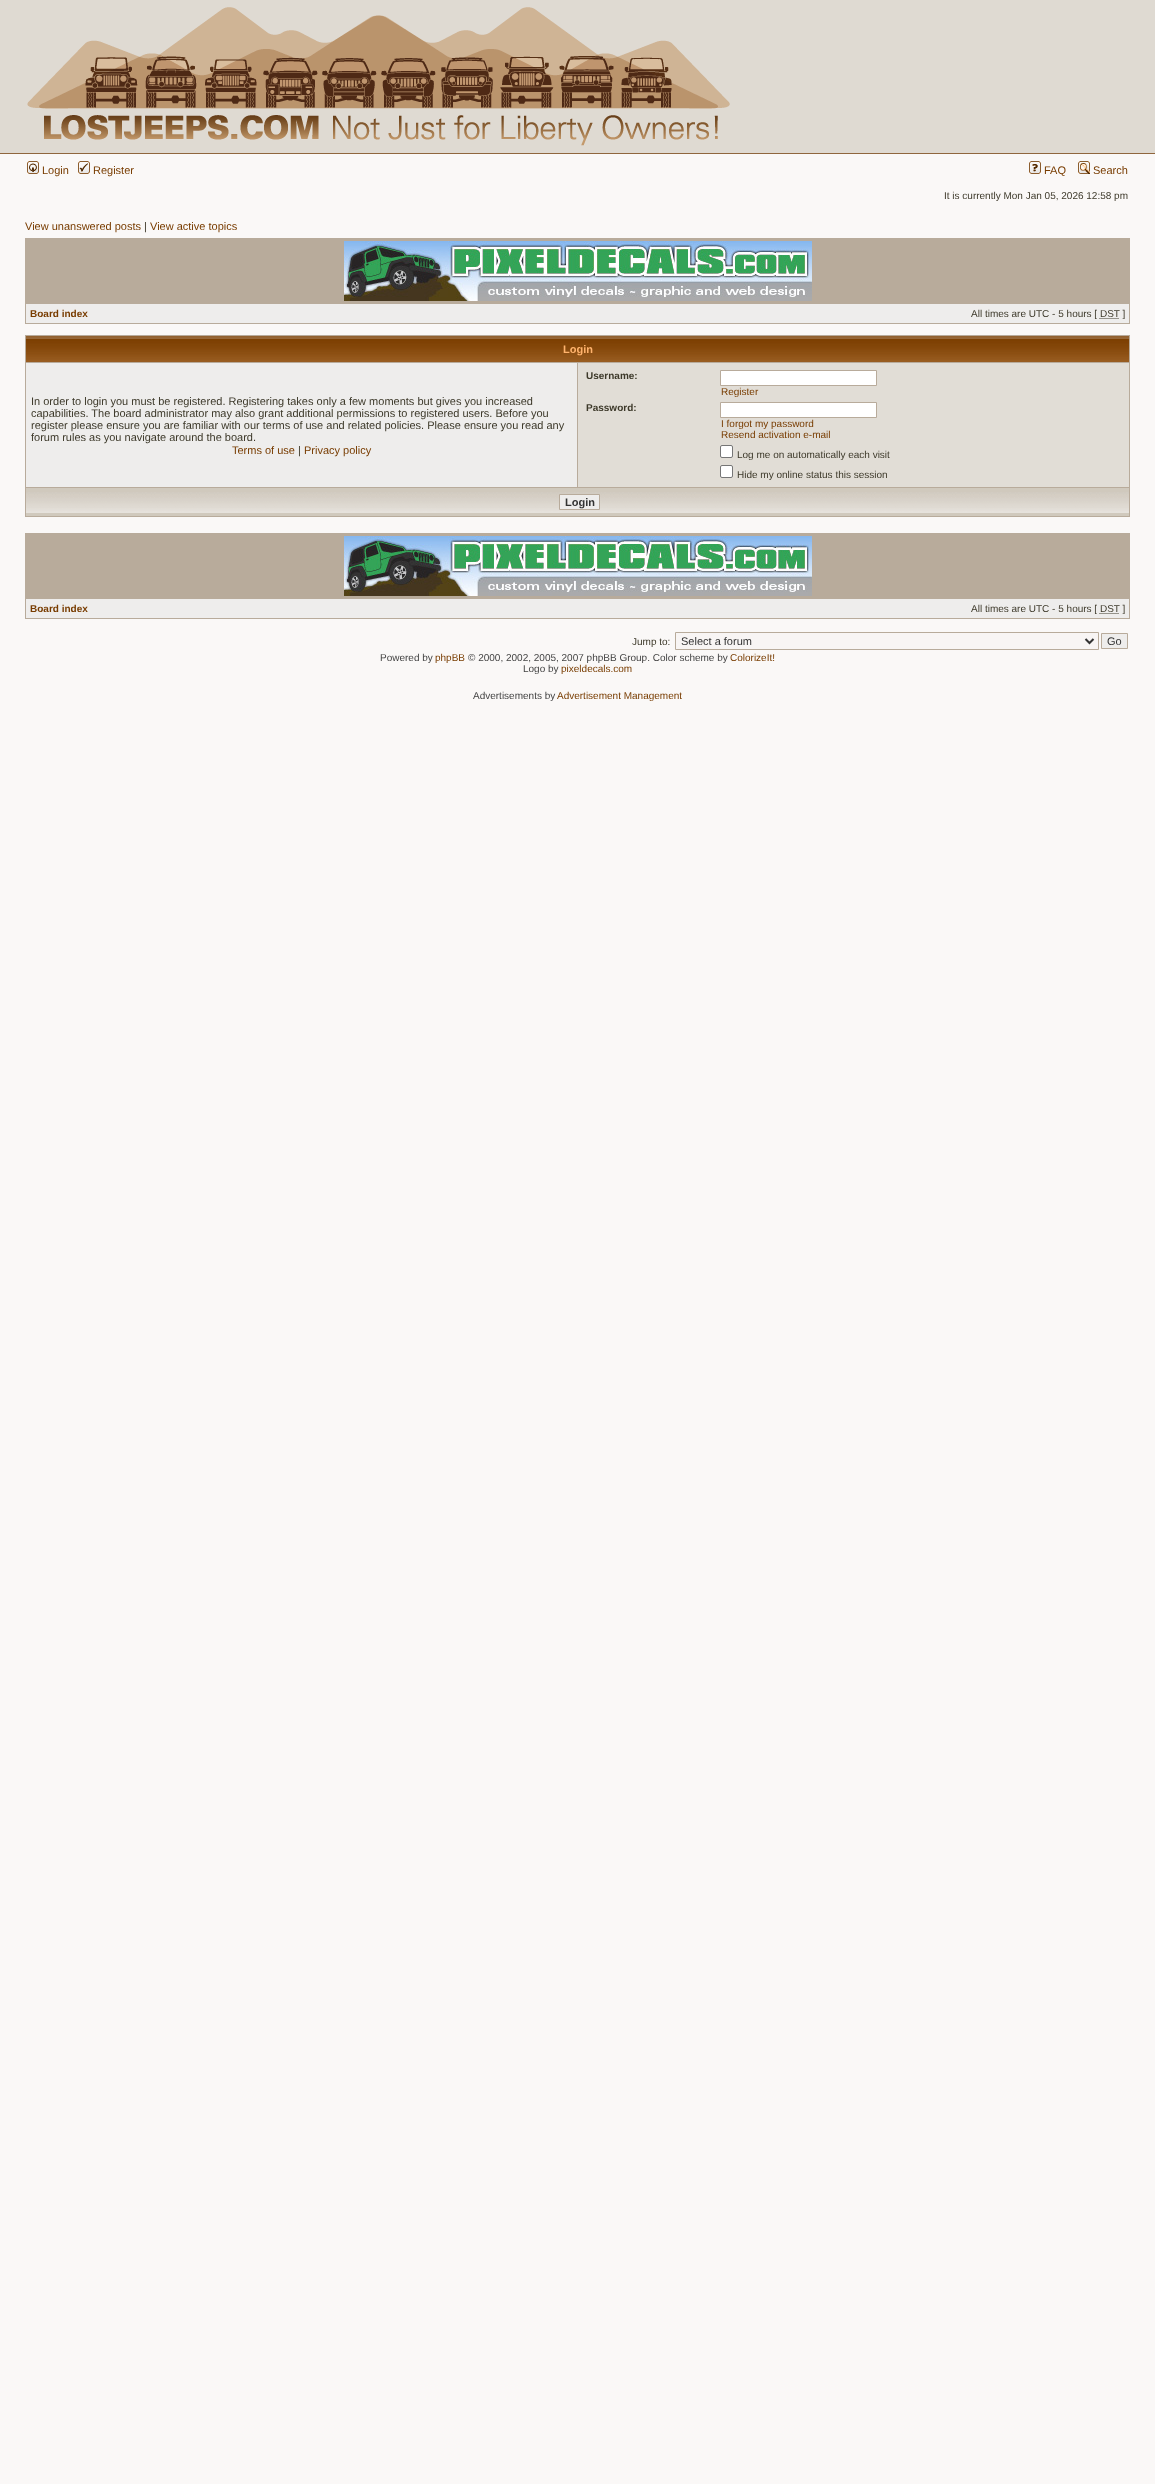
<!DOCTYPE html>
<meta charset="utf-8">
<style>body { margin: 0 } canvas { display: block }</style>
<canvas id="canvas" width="1155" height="2484"></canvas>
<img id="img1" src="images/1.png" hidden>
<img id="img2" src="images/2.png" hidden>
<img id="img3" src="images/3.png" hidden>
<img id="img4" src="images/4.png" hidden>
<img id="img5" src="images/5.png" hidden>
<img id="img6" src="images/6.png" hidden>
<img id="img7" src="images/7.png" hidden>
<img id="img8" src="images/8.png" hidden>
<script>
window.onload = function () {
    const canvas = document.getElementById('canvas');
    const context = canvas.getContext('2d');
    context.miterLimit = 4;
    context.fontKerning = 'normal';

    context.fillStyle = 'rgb(250, 248, 247)';
    context.fillRect(0, 0, 1155, 2484);
    context.fillStyle = 'rgb(223, 218, 210)';
    context.fillRect(0, 0, 1155, 153);
    context.fillStyle = 'rgb(143, 102, 61)';
    context.fillRect(0, 153, 1155, 1);
    context.drawImage(document.getElementById('img1'), 27, 7, 703, 139);
    context.drawImage(document.getElementById('img2'), 27, 161, 12, 13);
    context.drawImage(document.getElementById('img3'), 78, 161, 12, 13);
    context.drawImage(document.getElementById('img4'), 1029, 161, 12, 13);
    context.drawImage(document.getElementById('img5'), 1078, 161, 12, 13);
    context.fillStyle = 'rgb(184, 171, 155)';
    context.fillRect(25, 238, 1105, 86);
    context.drawImage(document.getElementById('img6'), 344, 241, 468, 60);
    context.fillStyle = 'rgb(238, 237, 236)';
    context.fillRect(26, 304, 1103, 19);
    context.beginPath();
    context.moveTo(1099.5, 318.5);
    context.lineTo(1119.5, 318.5);
    context.strokeStyle = 'rgb(61, 57, 42)';
    context.setLineDash([1, 1]);
    context.stroke();
    context.fillStyle = 'rgb(184, 171, 155)';
    context.fillRect(25, 335, 1105, 182);
    context.drawImage(document.getElementById('img7'), 26, 336, 1103, 26);
    context.fillStyle = 'rgb(238, 237, 236)';
    context.fillRect(26, 363, 551, 124);
    context.fillStyle = 'rgb(225, 221, 214)';
    context.fillRect(578, 363, 551, 124);
    context.fillStyle = 'rgb(255, 255, 255)';
    context.beginPath();
    context.rect(720.5, 370.5, 156, 15);
    context.fill();
    context.strokeStyle = 'rgb(184, 171, 155)';
    context.setLineDash([]);
    context.stroke();
    context.beginPath();
    context.rect(720.5, 402.5, 156, 15);
    context.fill();
    context.stroke();
    context.beginPath();
    context.roundRect(720.5, 445.5, 12, 12, 1.5);
    context.fill();
    context.strokeStyle = 'rgb(118, 118, 118)';
    context.stroke();
    context.beginPath();
    context.roundRect(720.5, 465.5, 12, 12, 1.5);
    context.fill();
    context.stroke();
    context.fillStyle = 'rgb(208, 201, 189)';
    context.fillRect(26, 488, 1103, 28);
    context.drawImage(document.getElementById('img8'), 26, 492, 1103, 21);
    context.fillStyle = 'rgb(238, 237, 236)';
    context.beginPath();
    context.rect(559.5, 494.5, 40, 15);
    context.fill();
    context.strokeStyle = 'rgb(184, 171, 155)';
    context.stroke();
    context.fillStyle = 'rgb(184, 171, 155)';
    context.fillRect(25, 533, 1105, 86);
    context.drawImage(document.getElementById('img6'), 344, 536, 468, 60);
    context.fillStyle = 'rgb(238, 237, 236)';
    context.fillRect(26, 599, 1103, 19);
    context.beginPath();
    context.moveTo(1099.5, 613.5);
    context.lineTo(1119.5, 613.5);
    context.strokeStyle = 'rgb(61, 57, 42)';
    context.setLineDash([1, 1]);
    context.stroke();
    context.fillStyle = 'rgb(248, 245, 244)';
    context.beginPath();
    context.rect(675.5, 632.5, 423, 17);
    context.fill();
    context.strokeStyle = 'rgb(184, 171, 155)';
    context.setLineDash([]);
    context.stroke();
    context.beginPath();
    context.moveTo(1085.5, 639);
    context.lineTo(1089.5, 643);
    context.lineTo(1093.5, 639);
    context.strokeStyle = 'rgb(51, 51, 51)';
    context.lineWidth = 2;
    context.stroke();
    context.fillStyle = 'rgb(238, 237, 236)';
    context.beginPath();
    context.rect(1101.5, 633.5, 26, 15);
    context.fill();
    context.strokeStyle = 'rgb(184, 171, 155)';
    context.lineWidth = 1;
    context.stroke();
    context.font = '11px Liberation Sans';
    context.fillStyle = 'rgb(120, 60, 0)';
    context.fillText('Login', 42, 174);
    context.fillText('Register', 93, 174);
    context.fillText('FAQ', 1044, 174);
    context.fillText('Search', 1093, 174);
    context.font = '10px Liberation Sans';
    context.fillStyle = 'rgb(61, 57, 42)';
    context.fillText('It is currently Mon Jan 05, 2026 12:58 pm', 944, 199);
    context.font = '11px Liberation Sans';
    context.fillStyle = 'rgb(120, 60, 0)';
    context.fillText('View unanswered posts', 25, 230);
    context.fillStyle = 'rgb(61, 57, 42)';
    context.fillText('|', 144, 230);
    context.fillStyle = 'rgb(120, 60, 0)';
    context.fillText('View active topics', 150, 230);
    context.font = 'bold 10px Liberation Sans';
    context.fillText('Board index', 30, 317);
    context.font = '10px Liberation Sans';
    context.fillStyle = 'rgb(61, 57, 42)';
    context.fillText('All times are UTC - 5 hours [ DST ]', 971, 317);
    context.font = 'bold 11px Liberation Sans';
    context.fillStyle = 'rgb(255, 179, 109)';
    context.fillText('Login', 563, 353);
    context.font = '11px Liberation Sans';
    context.fillStyle = 'rgb(61, 57, 42)';
    context.fillText('In order to login you must be registered. Registering takes only a few moments but gives you increased', 31, 405);
    context.fillText('capabilities. The board administrator may also grant additional permissions to registered users. Before you', 31, 417);
    context.fillText('register please ensure you are familiar with our terms of use and related policies. Please ensure you read any', 31, 429);
    context.fillText('forum rules as you navigate around the board.', 31, 441);
    context.fillStyle = 'rgb(120, 60, 0)';
    context.fillText('Terms of use', 232, 454);
    context.fillStyle = 'rgb(61, 57, 42)';
    context.fillText('|', 298, 454);
    context.fillStyle = 'rgb(120, 60, 0)';
    context.fillText('Privacy policy', 304, 454);
    context.font = 'bold 10px Liberation Sans';
    context.fillStyle = 'rgb(61, 57, 42)';
    context.fillText('Username:', 586, 379);
    context.font = '10px Liberation Sans';
    context.fillStyle = 'rgb(120, 60, 0)';
    context.fillText('Register', 721, 395);
    context.font = 'bold 10px Liberation Sans';
    context.fillStyle = 'rgb(61, 57, 42)';
    context.fillText('Password:', 586, 411);
    context.font = '10px Liberation Sans';
    context.fillStyle = 'rgb(120, 60, 0)';
    context.fillText('I forgot my password', 721, 427);
    context.fillText('Resend activation e-mail', 721, 438);
    context.fillStyle = 'rgb(61, 57, 42)';
    context.fillText('Log me on automatically each visit', 737, 458);
    context.fillText('Hide my online status this session', 737, 478);
    context.font = 'bold 11px Liberation Sans';
    context.fillStyle = 'rgb(51, 51, 51)';
    context.fillText('Login', 565, 506);
    context.font = 'bold 10px Liberation Sans';
    context.fillStyle = 'rgb(120, 60, 0)';
    context.fillText('Board index', 30, 612);
    context.font = '10px Liberation Sans';
    context.fillStyle = 'rgb(61, 57, 42)';
    context.fillText('All times are UTC - 5 hours [ DST ]', 971, 612);
    context.fillText('Jump to:', 632, 645);
    context.font = '11px Liberation Sans';
    context.fillStyle = 'rgb(51, 51, 51)';
    context.fillText('Select a forum', 681, 645);
    context.fillText('Go', 1107, 645);
    context.font = '10px Liberation Sans';
    context.fillStyle = 'rgb(68, 68, 68)';
    context.fillText('Powered by', 380, 661);
    context.fillStyle = 'rgb(120, 60, 0)';
    context.fillText('phpBB', 435, 661);
    context.fillStyle = 'rgb(68, 68, 68)';
    context.fillText('© 2000, 2002, 2005, 2007 phpBB Group. Color scheme by', 468, 661);
    context.fillStyle = 'rgb(120, 60, 0)';
    context.fillText('ColorizeIt!', 730, 661);
    context.fillStyle = 'rgb(68, 68, 68)';
    context.fillText('Logo by', 523, 672);
    context.fillStyle = 'rgb(120, 60, 0)';
    context.fillText('pixeldecals.com', 561, 672);
    context.fillStyle = 'rgb(68, 68, 68)';
    context.fillText('Advertisements by', 473, 699);
    context.fillStyle = 'rgb(120, 60, 0)';
    context.fillText('Advertisement Management', 557, 699);
};
</script>
